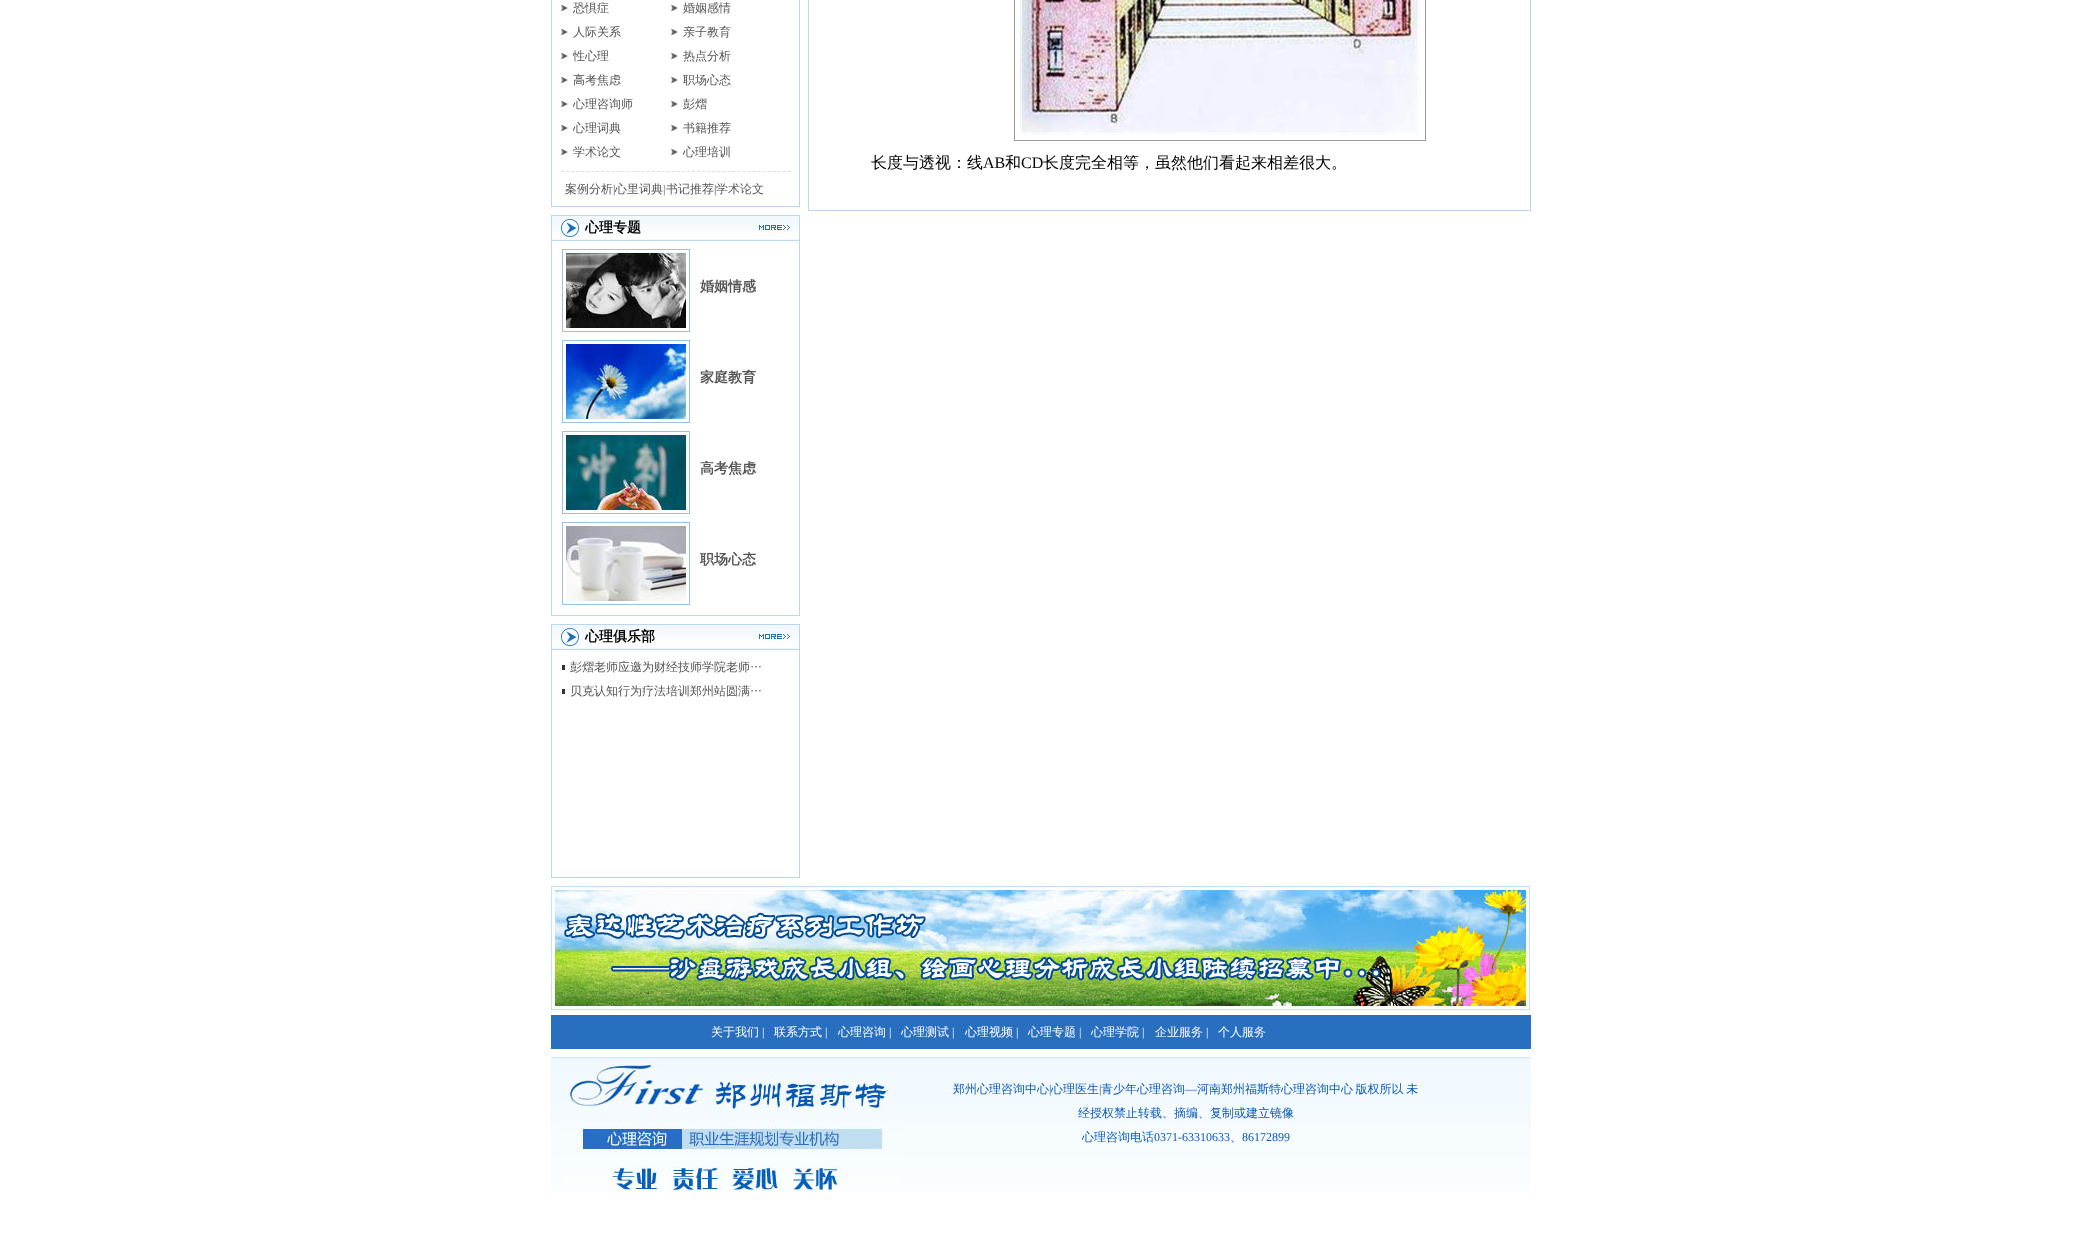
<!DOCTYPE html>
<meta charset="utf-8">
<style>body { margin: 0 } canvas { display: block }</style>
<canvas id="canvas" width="2082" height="1240"></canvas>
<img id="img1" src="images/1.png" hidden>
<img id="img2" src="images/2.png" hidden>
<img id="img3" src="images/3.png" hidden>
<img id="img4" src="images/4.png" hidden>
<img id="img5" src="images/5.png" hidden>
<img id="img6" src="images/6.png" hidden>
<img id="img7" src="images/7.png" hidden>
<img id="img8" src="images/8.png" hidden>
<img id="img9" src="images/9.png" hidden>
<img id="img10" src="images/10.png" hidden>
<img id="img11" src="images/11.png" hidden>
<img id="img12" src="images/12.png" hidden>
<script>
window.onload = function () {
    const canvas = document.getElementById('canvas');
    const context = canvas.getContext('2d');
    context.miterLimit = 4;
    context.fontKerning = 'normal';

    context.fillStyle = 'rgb(255, 255, 255)';
    context.fillRect(0, 0, 2082, 1240);
    context.fillStyle = 'rgb(187, 214, 240)';
    context.fillRect(799, 0, 1, 207);
    context.fillRect(551, 206, 249, 1);
    context.fillRect(551, 0, 1, 207);
    context.beginPath();
    context.moveTo(561, 171.5);
    context.lineTo(791, 171.5);
    context.strokeStyle = 'rgb(223, 223, 223)';
    context.setLineDash([3, 2.04]);
    context.stroke();
    context.drawImage(document.getElementById('img1'), 561, 5, 7, 6);
    context.drawImage(document.getElementById('img1'), 671, 5, 7, 6);
    context.drawImage(document.getElementById('img1'), 561, 29, 7, 6);
    context.drawImage(document.getElementById('img1'), 671, 29, 7, 6);
    context.drawImage(document.getElementById('img1'), 561, 53, 7, 6);
    context.drawImage(document.getElementById('img1'), 671, 53, 7, 6);
    context.drawImage(document.getElementById('img1'), 561, 77, 7, 6);
    context.drawImage(document.getElementById('img1'), 671, 77, 7, 6);
    context.drawImage(document.getElementById('img1'), 561, 101, 7, 6);
    context.drawImage(document.getElementById('img1'), 671, 101, 7, 6);
    context.drawImage(document.getElementById('img1'), 561, 125, 7, 6);
    context.drawImage(document.getElementById('img1'), 671, 125, 7, 6);
    context.drawImage(document.getElementById('img1'), 561, 149, 7, 6);
    context.drawImage(document.getElementById('img1'), 671, 149, 7, 6);
    context.drawImage(document.getElementById('img2'), 551, 215, 249, 26);
    context.drawImage(document.getElementById('img3'), 561, 219, 18, 18);
    context.drawImage(document.getElementById('img4'), 759, 225, 31, 5);
    context.fillRect(799, 241, 1, 375);
    context.fillRect(551, 615, 249, 1);
    context.fillRect(551, 241, 1, 375);
    context.strokeStyle = 'rgb(156, 192, 224)';
    context.setLineDash([]);
    context.strokeRect(562.5, 249.5, 127, 82);
    context.drawImage(document.getElementById('img5'), 566, 253, 120, 75);
    context.strokeRect(562.5, 340.5, 127, 82);
    context.drawImage(document.getElementById('img6'), 566, 344, 120, 75);
    context.strokeRect(562.5, 431.5, 127, 82);
    context.drawImage(document.getElementById('img7'), 566, 435, 120, 75);
    context.strokeRect(562.5, 522.5, 127, 82);
    context.drawImage(document.getElementById('img8'), 566, 526, 120, 75);
    context.drawImage(document.getElementById('img2'), 551, 624, 249, 26);
    context.drawImage(document.getElementById('img3'), 561, 628, 18, 18);
    context.drawImage(document.getElementById('img4'), 759, 634, 31, 5);
    context.fillRect(799, 650, 1, 228);
    context.fillRect(551, 877, 249, 1);
    context.fillRect(551, 650, 1, 228);
    context.fillStyle = 'rgb(51, 51, 51)';
    context.fillRect(562, 665, 3, 5);
    context.fillRect(562, 689, 3, 5);
    context.fillStyle = 'rgb(187, 214, 240)';
    context.fillRect(1530, 0, 1, 211);
    context.fillRect(808, 210, 723, 1);
    context.fillRect(808, 0, 1, 211);
    context.strokeStyle = 'rgb(153, 153, 153)';
    context.strokeRect(1014.5, -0.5, 411, 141);
    context.drawImage(document.getElementById('img9'), 1020, 0, 400, 135);
    context.drawImage(document.getElementById('img10'), 551, 886, 980, 124);
    context.fillStyle = 'rgb(41, 111, 191)';
    context.fillRect(551, 1015, 980, 34);
    context.drawImage(document.getElementById('img11'), 551, 1057, 980, 136);
    context.drawImage(document.getElementById('img12'), 563, 1062, 338, 128);
    context.font = '500 12px WenQuanYi Zen Hei';
    context.fillStyle = 'rgb(85, 85, 85)';
    context.fillText('恐惧症', 573, 12);
    context.fillText('婚姻感情', 683, 12);
    context.fillText('人际关系', 573, 36);
    context.fillText('亲子教育', 683, 36);
    context.fillText('性心理', 573, 60);
    context.fillText('热点分析', 683, 60);
    context.fillText('高考焦虑', 573, 84);
    context.fillText('职场心态', 683, 84);
    context.fillText('心理咨询师', 573, 108);
    context.fillText('彭熠', 683, 108);
    context.fillText('心理词典', 573, 132);
    context.fillText('书籍推荐', 683, 132);
    context.fillText('学术论文', 573, 156);
    context.fillText('心理培训', 683, 156);
    context.fillText('案例分析', 565, 193);
    context.font = '12px Liberation Serif';
    context.fillText('|', 613, 193);
    context.font = '500 12px WenQuanYi Zen Hei';
    context.fillText('心里词典', 615, 193);
    context.font = '12px Liberation Serif';
    context.fillText('|', 663, 193);
    context.font = '500 12px WenQuanYi Zen Hei';
    context.fillText('书记推荐', 666, 193);
    context.font = '12px Liberation Serif';
    context.fillText('|', 714, 193);
    context.font = '500 12px WenQuanYi Zen Hei';
    context.fillText('学术论文', 716, 193);
    context.font = 'bold 14px WenQuanYi Zen Hei';
    context.fillStyle = 'rgb(0, 0, 0)';
    context.fillText('心理专题', 585, 232);
    context.fillStyle = 'rgb(85, 85, 85)';
    context.fillText('婚姻情感', 700, 291);
    context.fillText('家庭教育', 700, 382);
    context.fillText('高考焦虑', 700, 473);
    context.fillText('职场心态', 700, 564);
    context.fillStyle = 'rgb(0, 0, 0)';
    context.fillText('心理俱乐部', 585, 641);
    context.font = '500 12px WenQuanYi Zen Hei';
    context.fillStyle = 'rgb(85, 85, 85)';
    context.fillText('彭熠老师应邀为财经技师学院老师…', 570, 671);
    context.fillText('贝克认知行为疗法培训郑州站圆满…', 570, 695);
    context.font = '500 16px WenQuanYi Zen Hei';
    context.fillStyle = 'rgb(0, 0, 0)';
    context.fillText('长度与透视：线', 871, 168);
    context.font = '16px Liberation Serif';
    context.fillText('AB', 983, 168);
    context.font = '500 16px WenQuanYi Zen Hei';
    context.fillText('和', 1005, 168);
    context.font = '16px Liberation Serif';
    context.fillText('CD', 1021, 168);
    context.font = '500 16px WenQuanYi Zen Hei';
    context.fillText('长度完全相等，虽然他们看起来相差很大。', 1043, 168);
    context.font = '500 12px WenQuanYi Zen Hei';
    context.fillStyle = 'rgb(255, 255, 255)';
    context.fillText('关于我们', 711, 1036);
    context.font = '12px Liberation Serif';
    context.fillText('|', 762, 1036);
    context.font = '500 12px WenQuanYi Zen Hei';
    context.fillText('联系方式', 774, 1036);
    context.font = '12px Liberation Serif';
    context.fillText('|', 825, 1036);
    context.font = '500 12px WenQuanYi Zen Hei';
    context.fillText('心理咨询', 838, 1036);
    context.font = '12px Liberation Serif';
    context.fillText('|', 889, 1036);
    context.font = '500 12px WenQuanYi Zen Hei';
    context.fillText('心理测试', 901, 1036);
    context.font = '12px Liberation Serif';
    context.fillText('|', 952, 1036);
    context.font = '500 12px WenQuanYi Zen Hei';
    context.fillText('心理视频', 965, 1036);
    context.font = '12px Liberation Serif';
    context.fillText('|', 1016, 1036);
    context.font = '500 12px WenQuanYi Zen Hei';
    context.fillText('心理专题', 1028, 1036);
    context.font = '12px Liberation Serif';
    context.fillText('|', 1079, 1036);
    context.font = '500 12px WenQuanYi Zen Hei';
    context.fillText('心理学院', 1091, 1036);
    context.font = '12px Liberation Serif';
    context.fillText('|', 1142, 1036);
    context.font = '500 12px WenQuanYi Zen Hei';
    context.fillText('企业服务', 1155, 1036);
    context.font = '12px Liberation Serif';
    context.fillText('|', 1206, 1036);
    context.font = '500 12px WenQuanYi Zen Hei';
    context.fillText('个人服务', 1218, 1036);
    context.fillStyle = 'rgb(11, 91, 182)';
    context.fillText('郑州心理咨询中心', 953, 1093);
    context.fillText('青少年心理咨询', 1101, 1093);
    context.font = '12px Liberation Serif';
    context.fillText('|', 1049, 1093);
    context.font = '500 12px WenQuanYi Zen Hei';
    context.fillText('心理医生', 1051, 1093);
    context.font = '12px Liberation Serif';
    context.fillText('|', 1099, 1093);
    context.fillText('—', 1185, 1093);
    context.wordSpacing = '-1px';
    context.font = '500 12px WenQuanYi Zen Hei';
    context.fillText('河南郑州福斯特心理咨询中心 版权所以 未', 1197, 1093);
    context.wordSpacing = '0px';
    context.fillText('经授权禁止转载、摘编、复制或建立镜像', 1078, 1117);
    context.fillText('心理咨询电话', 1082, 1141);
    context.font = '12px Liberation Serif';
    context.fillText('0371-63310633', 1154, 1141);
    context.font = '500 12px WenQuanYi Zen Hei';
    context.fillText('、', 1230, 1141);
    context.font = '12px Liberation Serif';
    context.fillText('86172899', 1242, 1141);
};
</script>
